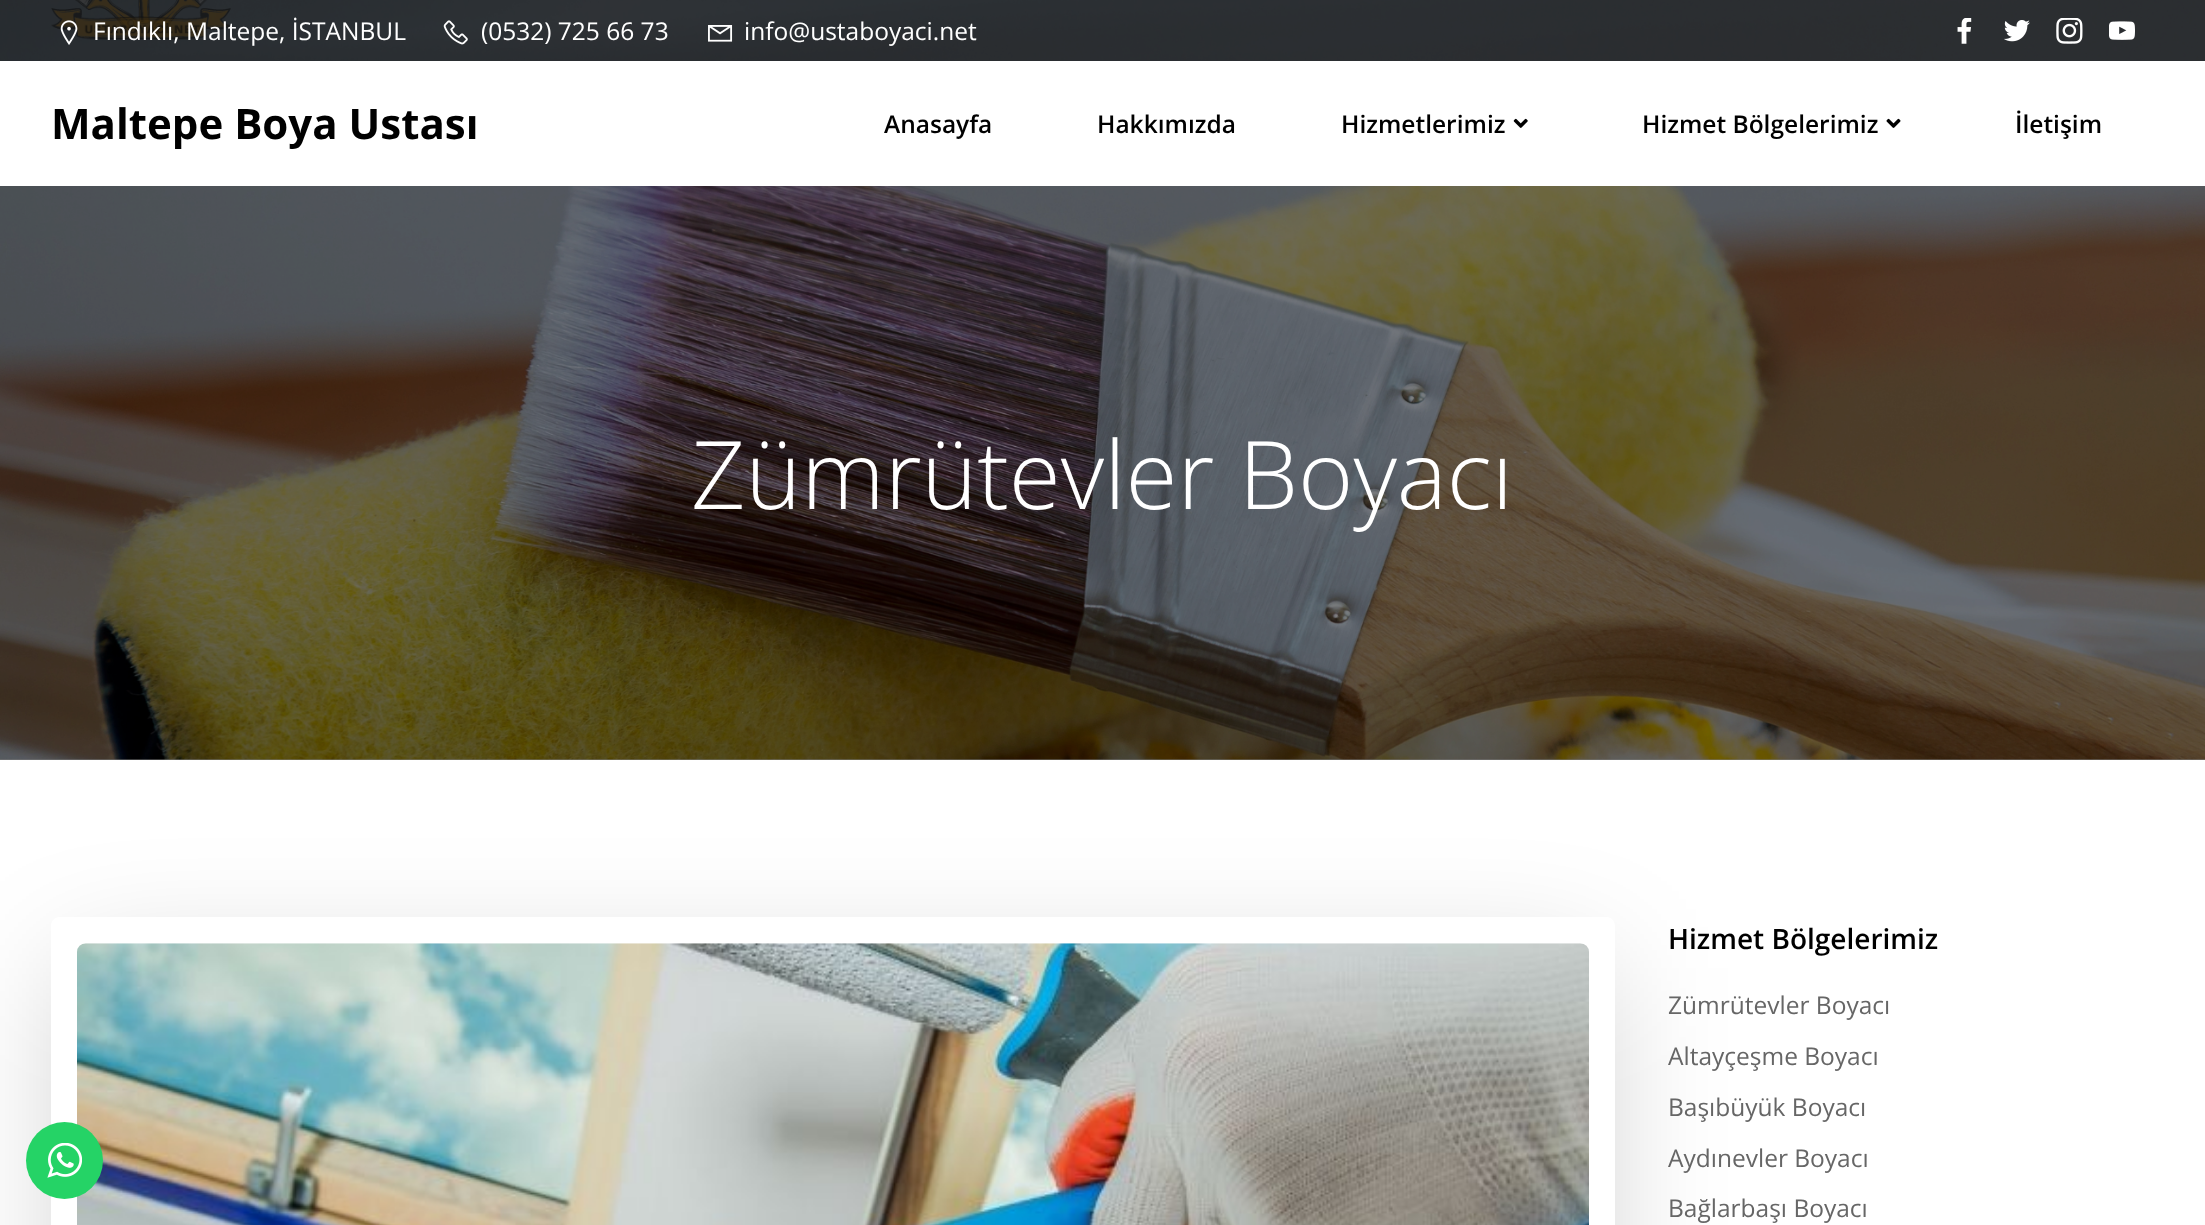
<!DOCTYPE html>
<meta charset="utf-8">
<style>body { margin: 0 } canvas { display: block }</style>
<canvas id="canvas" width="2205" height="1225"></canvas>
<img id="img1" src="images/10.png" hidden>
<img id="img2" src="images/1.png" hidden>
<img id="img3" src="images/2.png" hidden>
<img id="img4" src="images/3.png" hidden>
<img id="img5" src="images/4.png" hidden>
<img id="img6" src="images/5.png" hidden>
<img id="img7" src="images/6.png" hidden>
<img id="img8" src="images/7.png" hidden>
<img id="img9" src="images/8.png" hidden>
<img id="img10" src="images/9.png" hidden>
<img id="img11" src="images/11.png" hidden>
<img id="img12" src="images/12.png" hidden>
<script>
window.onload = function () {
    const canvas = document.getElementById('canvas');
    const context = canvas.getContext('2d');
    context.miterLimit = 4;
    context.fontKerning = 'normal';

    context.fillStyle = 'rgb(255, 255, 255)';
    context.fillRect(0, 0, 2205, 1225);
    context.fillStyle = 'rgb(122, 122, 122)';
    context.fillRect(0, 759, 2205, 1);
    context.drawImage(document.getElementById('img1'), 0, 0, 2205, 760);
    context.fillStyle = 'rgba(0, 0, 0, 0.5)';
    context.fillRect(0, 0, 2205, 61);
    context.drawImage(document.getElementById('img2'), 60, 20, 18, 25);
    context.drawImage(document.getElementById('img3'), 443, 20, 25, 25);
    context.drawImage(document.getElementById('img4'), 708, 25, 25, 17);
    context.drawImage(document.getElementById('img5'), 1957, 18, 15, 26);
    context.drawImage(document.getElementById('img6'), 2004, 20, 26, 22);
    context.drawImage(document.getElementById('img7'), 2056, 18, 27, 26);
    context.drawImage(document.getElementById('img8'), 2109, 21, 26, 19);
    context.fillStyle = 'rgb(255, 255, 255)';
    context.fillRect(0, 61, 2205, 125);
    context.drawImage(document.getElementById('img9'), 1513, 118, 15, 10);
    context.drawImage(document.getElementById('img10'), 1886, 118, 15, 10);
    context.save();
    context.beginPath();
    context.moveTo(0, 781);
    context.lineTo(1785, 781);
    context.lineTo(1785, 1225);
    context.lineTo(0, 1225);
    context.closePath();
    context.moveTo(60, 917);
    context.lineTo(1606, 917);
    context.bezierCurveTo(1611, 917, 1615, 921, 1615, 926);
    context.lineTo(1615, 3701);
    context.bezierCurveTo(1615, 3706, 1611, 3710, 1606, 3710);
    context.lineTo(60, 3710);
    context.bezierCurveTo(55, 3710, 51, 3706, 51, 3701);
    context.lineTo(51, 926);
    context.bezierCurveTo(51, 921, 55, 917, 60, 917);
    context.closePath();
    context.clip('evenodd');
    context.fillStyle = 'rgba(0, 0, 0, 0.2)';
    context.filter = 'blur(62px)';
    context.beginPath();
    context.rect(68, 968, 1530, 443);
    context.fill();
    context.filter = 'none';
    context.restore();
    context.drawImage(document.getElementById('img11'), 77, 943, 1512, 282);
    context.fillStyle = 'rgb(37, 211, 102)';
    context.beginPath();
    context.arc(64.5, 1160.5, 38.5, 0, 2 * Math.PI);
    context.fill();
    context.drawImage(document.getElementById('img12'), 47, 1143, 35, 35);
    context.font = '24.5px Open Sans';
    context.fillStyle = 'rgb(255, 255, 255)';
    context.fillText('Fındıklı, Maltepe, İSTANBUL', 93, 40);
    context.fillText('(0532) 725 66 73', 481, 40);
    context.fillText('info@ustaboyaci.net', 744, 40);
    context.font = 'bold 42px Open Sans';
    context.fillStyle = 'rgb(0, 0, 0)';
    context.fillText('Maltepe Boya Ustası', 51, 139);
    context.font = '600 24.5px Open Sans';
    context.fillText('Anasayfa', 884, 133);
    context.fillText('Hakkımızda', 1097, 133);
    context.fillText('Hizmetlerimiz', 1341, 133);
    context.fillText('Hizmet Bölgelerimiz', 1642, 133);
    context.fillText('İletişim', 2015, 133);
    context.font = '300 94.5px Open Sans';
    context.fillStyle = 'rgb(255, 255, 255)';
    context.fillText('Zümrütevler Boyacı', 691, 509);
    context.font = '600 28px Open Sans';
    context.fillStyle = 'rgb(0, 0, 0)';
    context.fillText('Hizmet Bölgelerimiz', 1668, 949);
    context.font = '24.5px Open Sans';
    context.fillStyle = 'rgb(102, 102, 102)';
    context.fillText('Zümrütevler Boyacı', 1668, 1014);
    context.fillText('Altayçeşme Boyacı', 1668, 1065);
    context.fillText('Başıbüyük Boyacı', 1668, 1116);
    context.fillText('Aydınevler Boyacı', 1668, 1167);
    context.fillText('Bağlarbaşı Boyacı', 1668, 1217);
};
</script>
